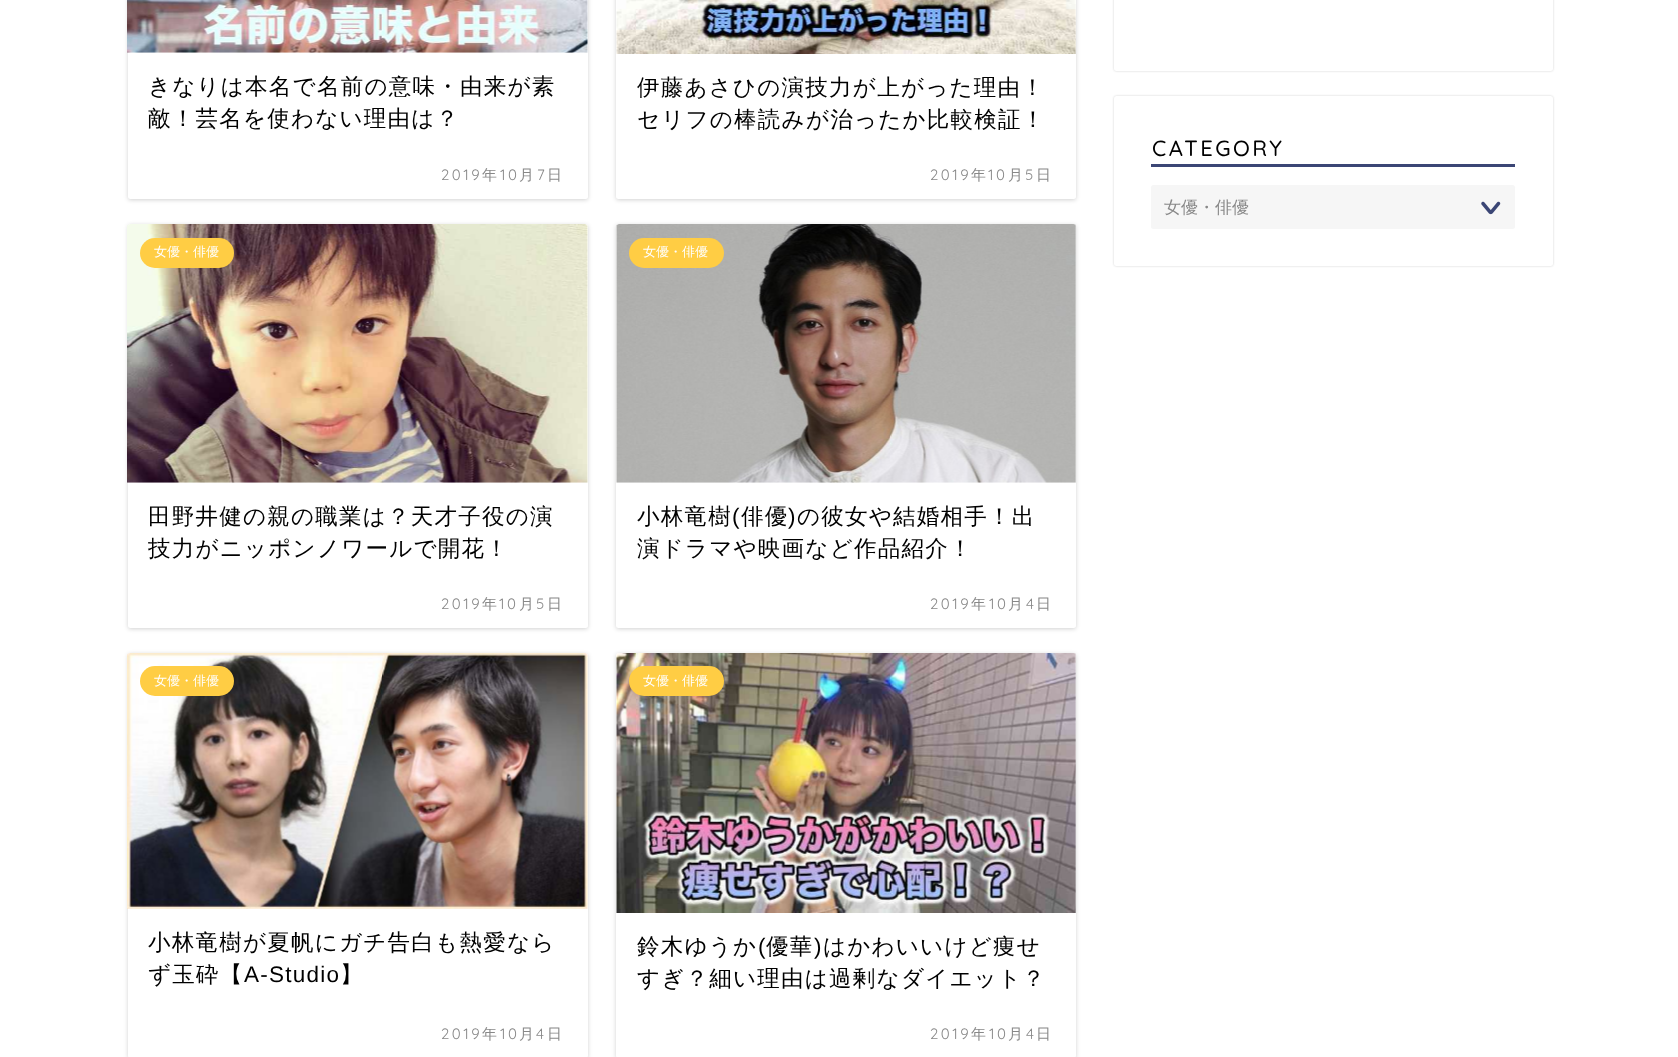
<!DOCTYPE html>
<meta charset="utf-8">
<style>body { margin: 0 } canvas { display: block }</style>
<canvas id="canvas" width="1678" height="1057"></canvas>
<img id="img1" src="images/1.png" hidden>
<img id="img2" src="images/2.png" hidden>
<img id="img3" src="images/3.png" hidden>
<img id="img4" src="images/4.png" hidden>
<img id="img5" src="images/5.png" hidden>
<img id="img6" src="images/6.png" hidden>
<img id="img7" src="images/7.png" hidden>
<script>
window.onload = function () {
    const canvas = document.getElementById('canvas');
    const context = canvas.getContext('2d');
    context.miterLimit = 4;
    context.fontKerning = 'normal';

    context.fillStyle = 'rgb(255, 255, 255)';
    context.fillRect(0, 0, 1678, 1057);
    context.fillStyle = 'rgba(0, 0, 0, 0.18)';
    context.filter = 'blur(2px)';
    context.beginPath();
    context.roundRect(128, -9, 460, 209, 2.5);
    context.fill();
    context.filter = 'none';
    context.fillStyle = 'rgb(255, 255, 255)';
    context.beginPath();
    context.roundRect(128, -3, 460, 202, 2.5);
    context.fill();
    context.drawImage(document.getElementById('img1'), 127, 0, 461, 53);
    context.fillStyle = 'rgba(0, 0, 0, 0.18)';
    context.filter = 'blur(2px)';
    context.beginPath();
    context.roundRect(616, -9, 460, 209, 2.5);
    context.fill();
    context.filter = 'none';
    context.fillStyle = 'rgb(255, 255, 255)';
    context.beginPath();
    context.roundRect(616, -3, 460, 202, 2.5);
    context.fill();
    context.drawImage(document.getElementById('img2'), 616, 0, 460, 54);
    context.fillStyle = 'rgba(0, 0, 0, 0.18)';
    context.filter = 'blur(2px)';
    context.beginPath();
    context.roundRect(128, 225, 460, 404, 2.5);
    context.fill();
    context.filter = 'none';
    context.fillStyle = 'rgb(255, 255, 255)';
    context.beginPath();
    context.roundRect(128, 224, 460, 404, 2.5);
    context.fill();
    context.drawImage(document.getElementById('img3'), 127, 224, 461, 259);
    context.fillStyle = 'rgb(255, 205, 68)';
    context.beginPath();
    context.roundRect(140, 238, 94, 30, 15);
    context.fill();
    context.fillStyle = 'rgba(0, 0, 0, 0.18)';
    context.filter = 'blur(2px)';
    context.beginPath();
    context.roundRect(616, 225, 460, 404, 2.5);
    context.fill();
    context.filter = 'none';
    context.fillStyle = 'rgb(255, 255, 255)';
    context.beginPath();
    context.roundRect(616, 224, 460, 404, 2.5);
    context.fill();
    context.drawImage(document.getElementById('img4'), 616, 224, 460, 259);
    context.fillStyle = 'rgb(255, 205, 68)';
    context.beginPath();
    context.roundRect(629, 238, 95, 30, 15);
    context.fill();
    context.fillStyle = 'rgba(0, 0, 0, 0.18)';
    context.filter = 'blur(2px)';
    context.beginPath();
    context.roundRect(128, 654, 460, 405, 2.5);
    context.fill();
    context.filter = 'none';
    context.fillStyle = 'rgb(255, 255, 255)';
    context.beginPath();
    context.roundRect(128, 653, 460, 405, 2.5);
    context.fill();
    context.drawImage(document.getElementById('img5'), 127, 653, 461, 256);
    context.fillStyle = 'rgb(255, 205, 68)';
    context.beginPath();
    context.roundRect(140, 666, 94, 30, 15);
    context.fill();
    context.fillStyle = 'rgba(0, 0, 0, 0.18)';
    context.filter = 'blur(2px)';
    context.beginPath();
    context.roundRect(616, 654, 460, 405, 2.5);
    context.fill();
    context.filter = 'none';
    context.fillStyle = 'rgb(255, 255, 255)';
    context.beginPath();
    context.roundRect(616, 653, 460, 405, 2.5);
    context.fill();
    context.drawImage(document.getElementById('img6'), 616, 653, 460, 260);
    context.fillStyle = 'rgb(255, 205, 68)';
    context.beginPath();
    context.roundRect(629, 666, 95, 30, 15);
    context.fill();
    context.fillStyle = 'rgba(0, 0, 0, 0.18)';
    context.filter = 'blur(1px)';
    context.beginPath();
    context.roundRect(1114, -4, 439, 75, 2.5);
    context.fill();
    context.filter = 'none';
    context.fillStyle = 'rgb(255, 255, 255)';
    context.beginPath();
    context.roundRect(1114, -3, 439, 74, 2.5);
    context.fill();
    context.fillStyle = 'rgba(0, 0, 0, 0.18)';
    context.filter = 'blur(1px)';
    context.beginPath();
    context.roundRect(1114, 96, 439, 170, 2.5);
    context.fill();
    context.filter = 'none';
    context.fillStyle = 'rgb(255, 255, 255)';
    context.beginPath();
    context.roundRect(1114, 96, 439, 170, 2.5);
    context.fill();
    context.fillStyle = 'rgb(59, 70, 117)';
    context.fillRect(1151, 164, 364, 3);
    context.fillStyle = 'rgb(246, 246, 246)';
    context.beginPath();
    context.roundRect(1151, 185, 364, 44, 2.5);
    context.fill();
    context.drawImage(document.getElementById('img7'), 1481, 201, 20, 14);
    context.letterSpacing = '1.25px';
    context.font = '500 22.5px WenQuanYi Zen Hei';
    context.fillStyle = 'rgb(0, 0, 0)';
    context.fillText('きなりは本名で名前の意味・由来が素', 148, 94);
    context.fillText('敵！芸名を使わない理由は？', 148, 126);
    context.letterSpacing = '2.5px';
    context.font = '15px Quicksand';
    context.fillStyle = 'rgb(136, 136, 136)';
    context.fillText('2019', 441, 180);
    context.font = '500 15px WenQuanYi Zen Hei';
    context.fillText('年', 482, 180);
    context.font = '15px Quicksand';
    context.fillText('10', 500, 180);
    context.font = '500 15px WenQuanYi Zen Hei';
    context.fillText('月', 519, 180);
    context.font = '15px Quicksand';
    context.fillText('7', 537, 180);
    context.font = '500 15px WenQuanYi Zen Hei';
    context.fillText('日', 547, 180);
    context.letterSpacing = '1.25px';
    context.font = '500 22.5px WenQuanYi Zen Hei';
    context.fillStyle = 'rgb(0, 0, 0)';
    context.fillText('伊藤あさひの演技力が上がった理由！', 637, 95);
    context.fillText('セリフの棒読みが治ったか比較検証！', 637, 127);
    context.letterSpacing = '2.5px';
    context.font = '15px Quicksand';
    context.fillStyle = 'rgb(136, 136, 136)';
    context.fillText('2019', 930, 180);
    context.font = '500 15px WenQuanYi Zen Hei';
    context.fillText('年', 971, 180);
    context.font = '15px Quicksand';
    context.fillText('10', 988, 180);
    context.font = '500 15px WenQuanYi Zen Hei';
    context.fillText('月', 1008, 180);
    context.font = '15px Quicksand';
    context.fillText('5', 1025, 180);
    context.font = '500 15px WenQuanYi Zen Hei';
    context.fillText('日', 1036, 180);
    context.letterSpacing = '0px';
    context.font = '500 13px WenQuanYi Zen Hei';
    context.fillStyle = 'rgb(255, 255, 255)';
    context.fillText('女優・俳優', 154, 256);
    context.letterSpacing = '1.25px';
    context.font = '500 22.5px WenQuanYi Zen Hei';
    context.fillStyle = 'rgb(0, 0, 0)';
    context.fillText('田野井健の親の職業は？天才子役の演', 148, 524);
    context.fillText('技力がニッポンノワールで開花！', 148, 556);
    context.letterSpacing = '2.5px';
    context.font = '15px Quicksand';
    context.fillStyle = 'rgb(136, 136, 136)';
    context.fillText('2019', 441, 609);
    context.font = '500 15px WenQuanYi Zen Hei';
    context.fillText('年', 482, 609);
    context.font = '15px Quicksand';
    context.fillText('10', 499, 609);
    context.font = '500 15px WenQuanYi Zen Hei';
    context.fillText('月', 519, 609);
    context.font = '15px Quicksand';
    context.fillText('5', 536, 609);
    context.font = '500 15px WenQuanYi Zen Hei';
    context.fillText('日', 547, 609);
    context.letterSpacing = '0px';
    context.font = '500 13px WenQuanYi Zen Hei';
    context.fillStyle = 'rgb(255, 255, 255)';
    context.fillText('女優・俳優', 643, 256);
    context.letterSpacing = '1.25px';
    context.font = '500 22.5px WenQuanYi Zen Hei';
    context.fillStyle = 'rgb(0, 0, 0)';
    context.fillText('小林竜樹', 637, 524);
    context.font = '22.5px Liberation Sans';
    context.fillText('(', 732, 524);
    context.font = '500 22.5px WenQuanYi Zen Hei';
    context.fillText('俳優', 741, 524);
    context.font = '22.5px Liberation Sans';
    context.fillText(')', 788, 524);
    context.font = '500 22.5px WenQuanYi Zen Hei';
    context.fillText('の彼女や結婚相手！出', 797, 524);
    context.fillText('演ドラマや映画など作品紹介！', 637, 556);
    context.letterSpacing = '2.5px';
    context.font = '15px Quicksand';
    context.fillStyle = 'rgb(136, 136, 136)';
    context.fillText('2019', 930, 609);
    context.font = '500 15px WenQuanYi Zen Hei';
    context.fillText('年', 971, 609);
    context.font = '15px Quicksand';
    context.fillText('10', 989, 609);
    context.font = '500 15px WenQuanYi Zen Hei';
    context.fillText('月', 1008, 609);
    context.font = '15px Quicksand';
    context.fillText('4', 1026, 609);
    context.font = '500 15px WenQuanYi Zen Hei';
    context.fillText('日', 1036, 609);
    context.letterSpacing = '0px';
    context.font = '500 13px WenQuanYi Zen Hei';
    context.fillStyle = 'rgb(255, 255, 255)';
    context.fillText('女優・俳優', 154, 685);
    context.letterSpacing = '1.25px';
    context.font = '500 22.5px WenQuanYi Zen Hei';
    context.fillStyle = 'rgb(0, 0, 0)';
    context.fillText('小林竜樹が夏帆にガチ告白も熱愛なら', 148, 950);
    context.fillText('ず玉砕【', 148, 982);
    context.font = '22.5px Liberation Sans';
    context.fillText('A-Studio', 244, 982);
    context.font = '500 22.5px WenQuanYi Zen Hei';
    context.fillText('】', 340, 982);
    context.letterSpacing = '2.5px';
    context.font = '15px Quicksand';
    context.fillStyle = 'rgb(136, 136, 136)';
    context.fillText('2019', 441, 1039);
    context.font = '500 15px WenQuanYi Zen Hei';
    context.fillText('年', 482, 1039);
    context.font = '15px Quicksand';
    context.fillText('10', 500, 1039);
    context.font = '500 15px WenQuanYi Zen Hei';
    context.fillText('月', 519, 1039);
    context.font = '15px Quicksand';
    context.fillText('4', 536, 1039);
    context.font = '500 15px WenQuanYi Zen Hei';
    context.fillText('日', 547, 1039);
    context.letterSpacing = '0px';
    context.font = '500 13px WenQuanYi Zen Hei';
    context.fillStyle = 'rgb(255, 255, 255)';
    context.fillText('女優・俳優', 643, 685);
    context.letterSpacing = '1.25px';
    context.font = '500 22.5px WenQuanYi Zen Hei';
    context.fillStyle = 'rgb(0, 0, 0)';
    context.fillText('鈴木ゆうか', 637, 954);
    context.font = '22.5px Liberation Sans';
    context.fillText('(', 758, 954);
    context.font = '500 22.5px WenQuanYi Zen Hei';
    context.fillText('優華', 766, 954);
    context.font = '22.5px Liberation Sans';
    context.fillText(')', 814, 954);
    context.font = '500 22.5px WenQuanYi Zen Hei';
    context.fillText('はかわいいけど痩せ', 823, 954);
    context.fillText('すぎ？細い理由は過剰なダイエット？', 637, 986);
    context.letterSpacing = '2.5px';
    context.font = '15px Quicksand';
    context.fillStyle = 'rgb(136, 136, 136)';
    context.fillText('2019', 930, 1039);
    context.font = '500 15px WenQuanYi Zen Hei';
    context.fillText('年', 971, 1039);
    context.font = '15px Quicksand';
    context.fillText('10', 989, 1039);
    context.font = '500 15px WenQuanYi Zen Hei';
    context.fillText('月', 1008, 1039);
    context.font = '15px Quicksand';
    context.fillText('4', 1026, 1039);
    context.font = '500 15px WenQuanYi Zen Hei';
    context.fillText('日', 1036, 1039);
    context.font = '500 22px Quicksand';
    context.fillStyle = 'rgb(0, 0, 0)';
    context.fillText('CATEGORY', 1152, 156);
    context.letterSpacing = '0px';
    context.font = '500 17px WenQuanYi Zen Hei';
    context.fillStyle = 'rgb(136, 136, 136)';
    context.fillText('女優・俳優', 1164, 213);
};
</script>
